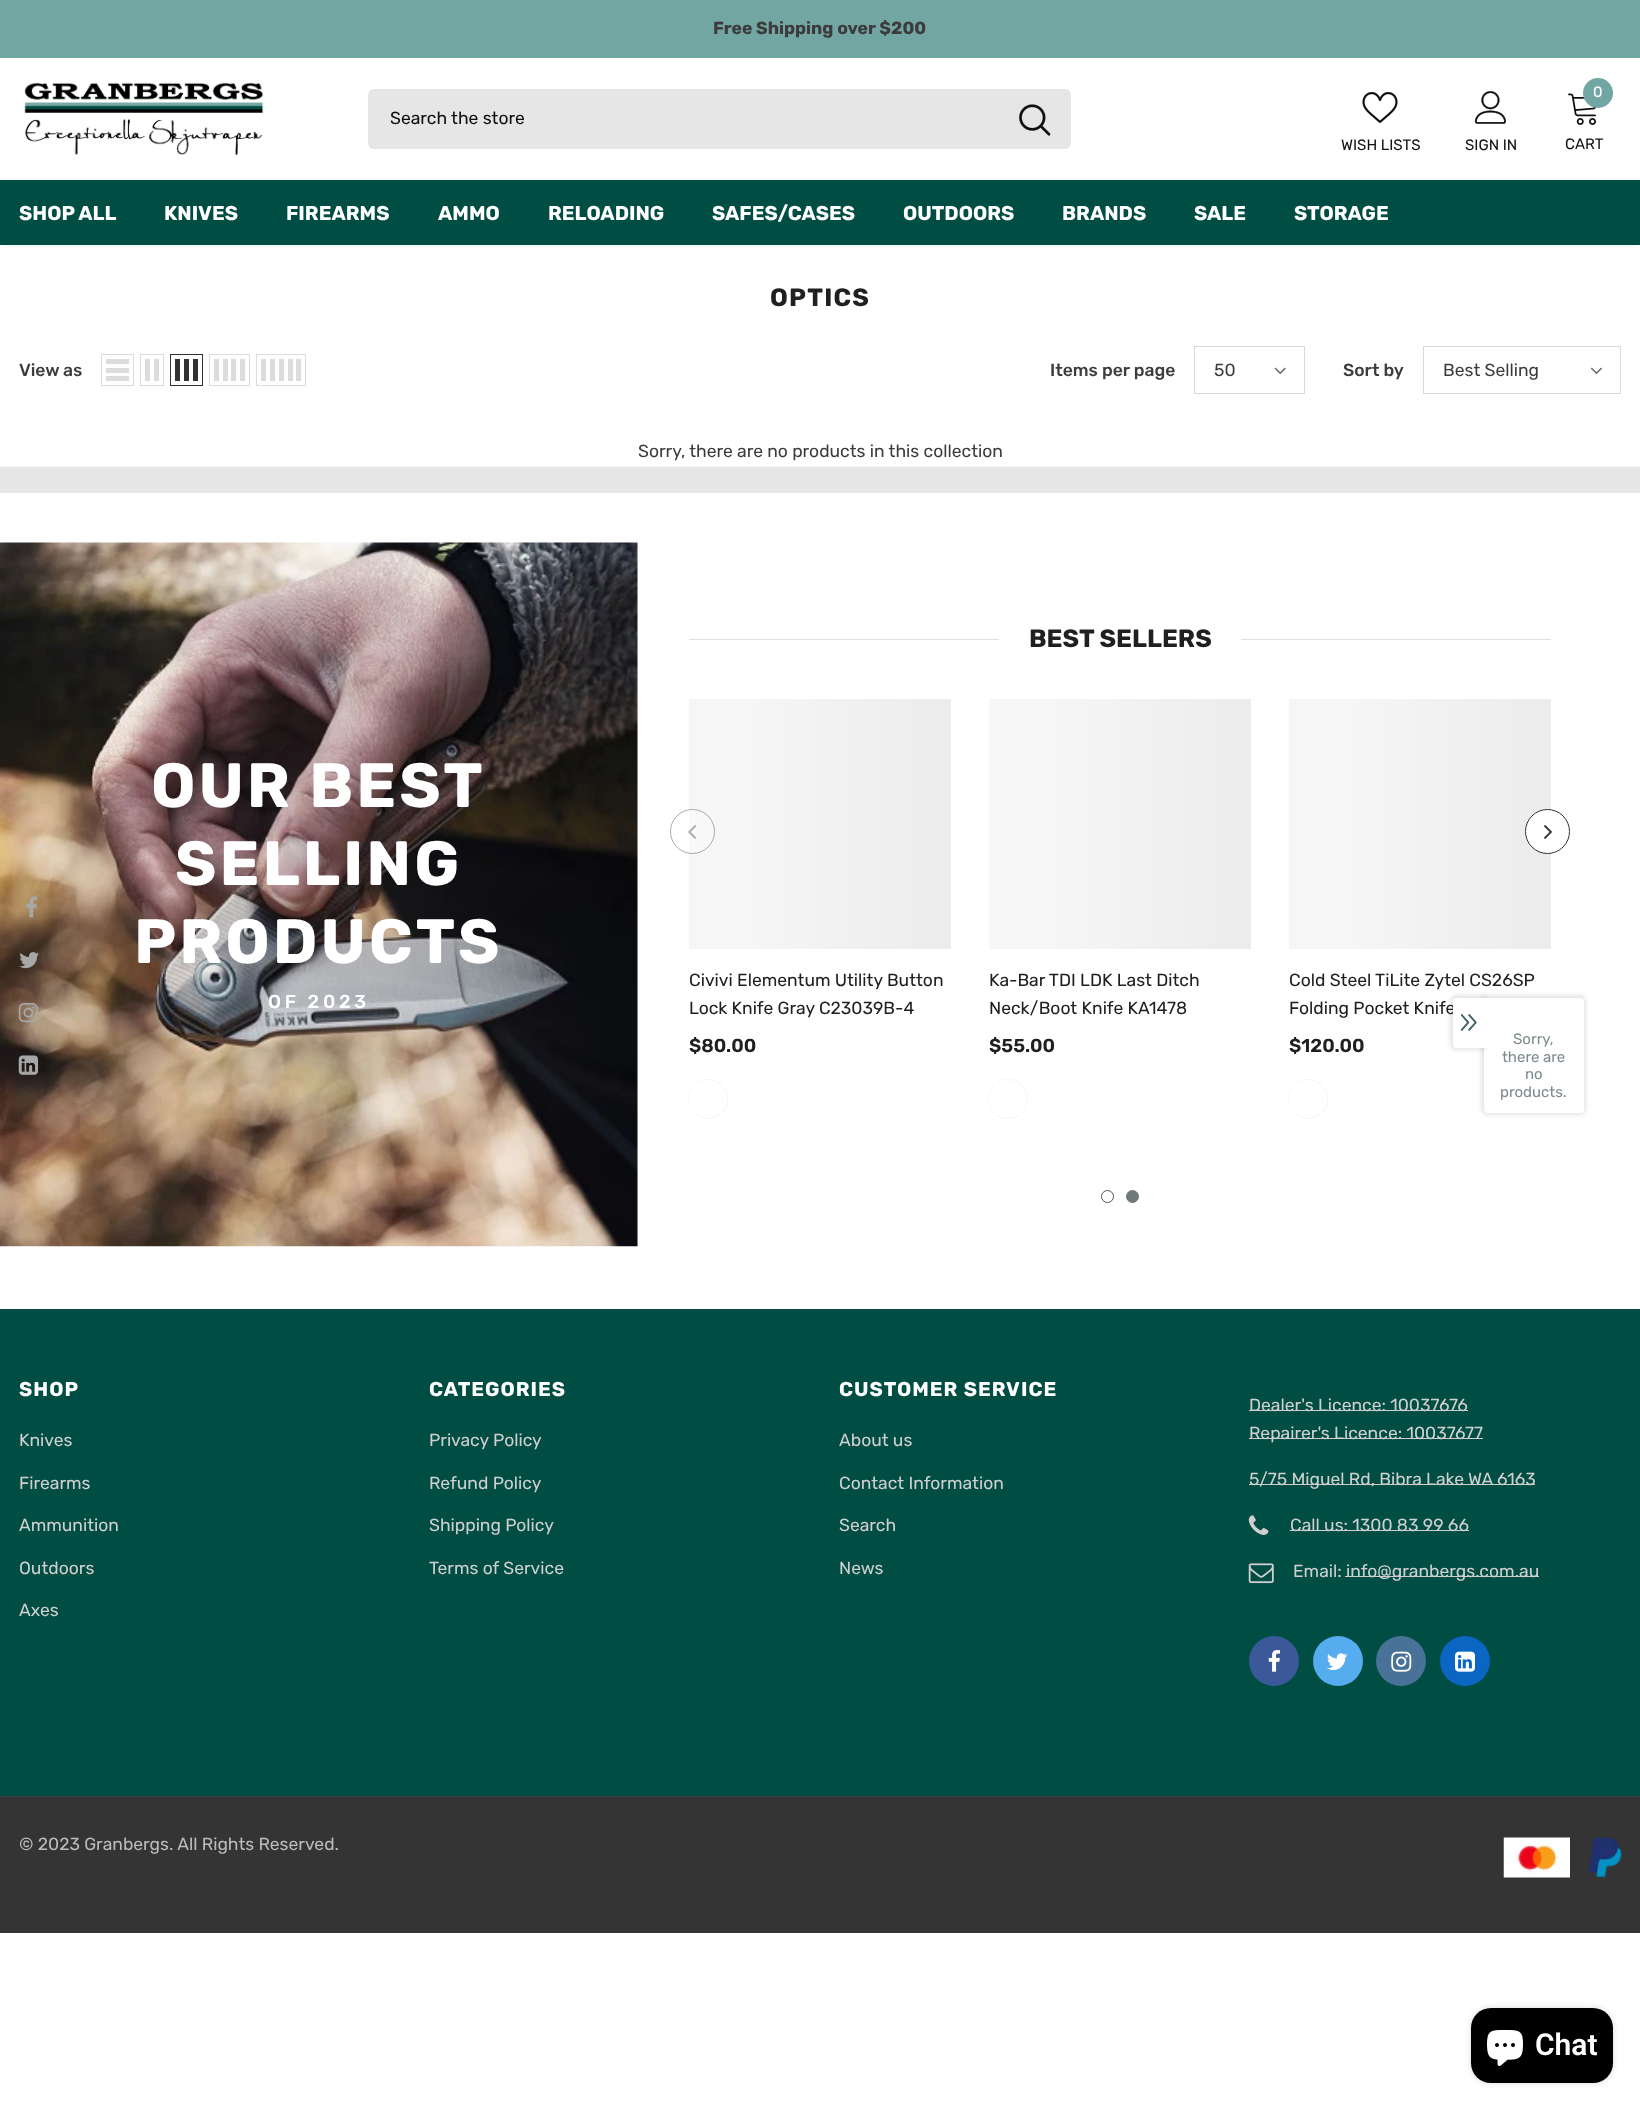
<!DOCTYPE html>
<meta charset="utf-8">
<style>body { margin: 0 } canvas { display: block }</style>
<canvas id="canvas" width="1640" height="2108"></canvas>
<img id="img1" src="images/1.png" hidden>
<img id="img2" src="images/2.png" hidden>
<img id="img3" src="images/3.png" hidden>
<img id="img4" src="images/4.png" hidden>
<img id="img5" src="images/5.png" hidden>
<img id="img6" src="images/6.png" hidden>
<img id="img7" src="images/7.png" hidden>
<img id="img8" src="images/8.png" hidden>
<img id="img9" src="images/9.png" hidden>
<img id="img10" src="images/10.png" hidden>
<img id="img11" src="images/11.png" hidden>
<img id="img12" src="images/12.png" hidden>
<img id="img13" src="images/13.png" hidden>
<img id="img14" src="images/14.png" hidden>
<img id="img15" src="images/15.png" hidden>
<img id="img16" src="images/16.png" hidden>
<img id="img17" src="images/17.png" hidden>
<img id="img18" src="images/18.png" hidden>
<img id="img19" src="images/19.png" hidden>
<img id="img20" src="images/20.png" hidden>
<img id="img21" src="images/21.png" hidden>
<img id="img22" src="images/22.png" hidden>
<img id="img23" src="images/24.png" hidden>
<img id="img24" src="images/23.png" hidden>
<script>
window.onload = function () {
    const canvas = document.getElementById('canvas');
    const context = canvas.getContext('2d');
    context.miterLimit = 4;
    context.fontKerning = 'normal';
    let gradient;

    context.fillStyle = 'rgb(255, 255, 255)';
    context.fillRect(0, 0, 1640, 2108);
    context.fillStyle = 'rgb(114, 166, 163)';
    context.fillRect(0, 0, 1640, 58);
    context.drawImage(document.getElementById('img1'), 24, 82, 240, 74);
    context.fillStyle = 'rgb(230, 230, 230)';
    context.beginPath();
    context.roundRect(368, 89, 703, 60, 6);
    context.fill();
    context.drawImage(document.getElementById('img2'), 1019, 104, 32, 32);
    context.drawImage(document.getElementById('img3'), 1362, 92, 36, 31);
    context.drawImage(document.getElementById('img4'), 1474, 91, 32, 33);
    context.drawImage(document.getElementById('img5'), 1568, 93, 29, 32);
    context.fillStyle = 'rgb(114, 166, 163)';
    context.beginPath();
    context.arc(1598, 93, 15, 0, 2 * Math.PI);
    context.fill();
    context.fillStyle = 'rgba(0, 0, 0, 0.1)';
    context.filter = 'blur(2px)';
    context.beginPath();
    context.rect(4, 188, 1632, 57);
    context.fill();
    context.filter = 'none';
    context.fillStyle = 'rgb(0, 77, 67)';
    context.fillRect(0, 180, 1640, 65);
    context.strokeStyle = 'rgb(220, 220, 220)';
    context.strokeRect(101.5, 354.5, 32, 31);
    context.fillStyle = 'rgb(220, 220, 220)';
    context.fillRect(106, 376, 23, 5);
    context.fillRect(106, 368, 23, 5);
    context.fillRect(106, 359, 23, 5);
    context.strokeRect(140.5, 354.5, 23, 31);
    context.fillRect(154, 359, 5, 22);
    context.fillRect(145, 359, 5, 22);
    context.strokeStyle = 'rgb(50, 50, 50)';
    context.strokeRect(170.5, 354.5, 32, 31);
    context.fillStyle = 'rgb(50, 50, 50)';
    context.fillRect(193, 359, 5, 22);
    context.fillRect(184, 359, 5, 22);
    context.fillRect(175, 359, 5, 22);
    context.strokeStyle = 'rgb(220, 220, 220)';
    context.strokeRect(209.5, 354.5, 40, 31);
    context.fillStyle = 'rgb(220, 220, 220)';
    context.fillRect(240, 359, 5, 22);
    context.fillRect(231, 359, 5, 22);
    context.fillRect(223, 359, 5, 22);
    context.fillRect(214, 359, 5, 22);
    context.strokeRect(256.5, 354.5, 49, 31);
    context.fillRect(296, 359, 5, 22);
    context.fillRect(288, 359, 5, 22);
    context.fillRect(279, 359, 5, 22);
    context.fillRect(270, 359, 5, 22);
    context.fillRect(261, 359, 5, 22);
    context.strokeStyle = 'rgb(218, 218, 218)';
    context.strokeRect(1194.5, 346.5, 110, 47);
    context.drawImage(document.getElementById('img6'), 1274, 367, 12, 8);
    context.strokeRect(1423.5, 346.5, 197, 47);
    context.drawImage(document.getElementById('img7'), 1590, 367, 12, 8);
    context.fillStyle = 'rgb(230, 230, 230)';
    context.fillRect(0, 467, 1640, 26);
    context.fillStyle = 'rgb(250, 250, 250)';
    context.fillRect(0, 466, 1640, 1);
    context.drawImage(document.getElementById('img8'), 0, 542, 638, 705);
    context.fillStyle = 'rgb(224, 224, 224)';
    context.fillRect(689, 639, 862, 1);
    context.fillStyle = 'rgb(255, 255, 255)';
    context.fillRect(999, 639, 242, 1);
    gradient = context.createLinearGradient(689, 823, 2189, 823);
    gradient.addColorStop(0.04, 'rgb(246, 246, 246)');
    gradient.addColorStop(0.25, 'rgb(230, 230, 230)');
    gradient.addColorStop(0.36, 'rgb(246, 246, 246)');
    context.fillStyle = gradient;
    context.fillRect(689, 699, 262, 250);
    context.fillStyle = 'rgba(255, 255, 255, 0.4)';
    context.beginPath();
    context.arc(692.5, 831.5, 22.5, 0, 2 * Math.PI);
    context.fill();
    context.beginPath();
    context.arc(692.5, 831.5, 22, 0, 2 * Math.PI);
    context.strokeStyle = 'rgba(50, 50, 50, 0.4)';
    context.stroke();
    context.drawImage(document.getElementById('img9'), 688, 825, 9, 14);
    gradient = context.createLinearGradient(1289, 823, 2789, 823);
    gradient.addColorStop(0.04, 'rgb(246, 246, 246)');
    gradient.addColorStop(0.25, 'rgb(230, 230, 230)');
    gradient.addColorStop(0.36, 'rgb(246, 246, 246)');
    context.fillStyle = gradient;
    context.fillRect(1289, 699, 262, 250);
    context.fillStyle = 'rgb(255, 255, 255)';
    context.beginPath();
    context.arc(1547.5, 831.5, 22, 0, 2 * Math.PI);
    context.fill();
    context.strokeStyle = 'rgb(50, 50, 50)';
    context.stroke();
    context.drawImage(document.getElementById('img10'), 1544, 825, 8, 14);
    context.beginPath();
    context.arc(708, 1099, 19.5, 0, 2 * Math.PI);
    context.strokeStyle = 'rgb(246, 246, 246)';
    context.stroke();
    context.beginPath();
    context.roundRect(691, 1082, 33, 34, 16.5);
    context.strokeStyle = 'rgb(255, 255, 255)';
    context.lineWidth = 4;
    context.stroke();
    gradient = context.createLinearGradient(989, 823, 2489, 823);
    gradient.addColorStop(0.04, 'rgb(246, 246, 246)');
    gradient.addColorStop(0.25, 'rgb(230, 230, 230)');
    gradient.addColorStop(0.36, 'rgb(246, 246, 246)');
    context.fillStyle = gradient;
    context.fillRect(989, 699, 262, 250);
    context.beginPath();
    context.arc(1008, 1099, 19.5, 0, 2 * Math.PI);
    context.strokeStyle = 'rgb(246, 246, 246)';
    context.lineWidth = 1;
    context.stroke();
    context.beginPath();
    context.roundRect(991, 1082, 33, 34, 16.5);
    context.strokeStyle = 'rgb(255, 255, 255)';
    context.lineWidth = 4;
    context.stroke();
    context.beginPath();
    context.arc(1308, 1099, 19.5, 0, 2 * Math.PI);
    context.strokeStyle = 'rgb(246, 246, 246)';
    context.lineWidth = 1;
    context.stroke();
    context.beginPath();
    context.roundRect(1291, 1082, 33, 34, 16.5);
    context.strokeStyle = 'rgb(255, 255, 255)';
    context.lineWidth = 4;
    context.stroke();
    context.beginPath();
    context.arc(1107.5, 1196.5, 6, 0, 2 * Math.PI);
    context.strokeStyle = 'rgb(80, 86, 86)';
    context.lineWidth = 1;
    context.stroke();
    context.fillStyle = 'rgb(112, 121, 121)';
    context.beginPath();
    context.arc(1132.5, 1196.5, 6, 0, 2 * Math.PI);
    context.fill();
    context.strokeStyle = 'rgb(112, 121, 121)';
    context.stroke();
    context.fillStyle = 'rgb(0, 77, 67)';
    context.fillRect(0, 1309, 1640, 487);
    context.fillStyle = 'rgb(207, 207, 208)';
    context.fillRect(1249, 1410, 219, 1);
    context.fillRect(1249, 1438, 234, 1);
    context.fillRect(1249, 1484, 286, 1);
    context.drawImage(document.getElementById('img11'), 1248, 1515, 21, 20);
    context.fillRect(1290, 1530, 179, 1);
    context.drawImage(document.getElementById('img12'), 1248, 1563, 26, 21);
    context.fillRect(1345, 1576, 194, 1);
    context.fillStyle = 'rgb(59, 89, 152)';
    context.beginPath();
    context.arc(1274, 1661, 25, 0, 2 * Math.PI);
    context.fill();
    context.drawImage(document.getElementById('img13'), 1268, 1650, 12, 22);
    context.fillStyle = 'rgb(85, 172, 238)';
    context.beginPath();
    context.arc(1338, 1661, 25, 0, 2 * Math.PI);
    context.fill();
    context.drawImage(document.getElementById('img14'), 1327, 1653, 21, 17);
    context.fillStyle = 'rgb(73, 114, 153)';
    context.beginPath();
    context.arc(1401, 1661, 25, 0, 2 * Math.PI);
    context.fill();
    context.drawImage(document.getElementById('img15'), 1391, 1651, 21, 21);
    context.fillStyle = 'rgb(10, 102, 194)';
    context.beginPath();
    context.arc(1465, 1661, 25, 0, 2 * Math.PI);
    context.fill();
    context.drawImage(document.getElementById('img16'), 1455, 1651, 20, 21);
    context.fillStyle = 'rgb(52, 52, 52)';
    context.fillRect(0, 1797, 1640, 136);
    context.fillStyle = 'rgb(58, 62, 69)';
    context.fillRect(0, 1796, 1640, 1);
    context.drawImage(document.getElementById('img17'), 1503, 1837, 67, 41);
    context.drawImage(document.getElementById('img18'), 1588, 1837, 34, 41);
    context.drawImage(document.getElementById('img19'), 26, 896, 11, 22);
    context.drawImage(document.getElementById('img20'), 19, 952, 20, 17);
    context.drawImage(document.getElementById('img21'), 18, 1003, 20, 20);
    context.drawImage(document.getElementById('img22'), 18, 1055, 21, 20);
    context.fillStyle = 'rgba(0, 0, 0, 0.1)';
    context.filter = 'blur(2px)';
    context.beginPath();
    context.roundRect(1481, 995, 105, 120, 6);
    context.fill();
    context.filter = 'none';
    context.fillStyle = 'rgb(255, 255, 255)';
    context.beginPath();
    context.roundRect(1484, 998, 100, 115, [0, 4, 4, 4]);
    context.fill();
    context.fillStyle = 'rgba(0, 0, 0, 0.1)';
    context.filter = 'blur(2px)';
    context.beginPath();
    context.roundRect(1450, 995, 38, 55, 6);
    context.fill();
    context.filter = 'none';
    context.fillStyle = 'rgb(255, 255, 255)';
    context.fillRect(1485, 998, 5, 50);
    context.fillStyle = 'rgba(0, 0, 0, 0.15)';
    context.filter = 'blur(3px)';
    context.beginPath();
    context.roundRect(1471, 2008, 142, 75, 20);
    context.fill();
    context.filter = 'none';
    context.fillStyle = 'rgb(0, 0, 0)';
    context.beginPath();
    context.roundRect(1471, 2008, 142, 75, 20);
    context.fill();
    context.drawImage(document.getElementById('img23'), 1487, 2030, 36, 36);
    context.font = 'bold 17.5px Rubik';
    context.fillStyle = 'rgb(60, 60, 60)';
    context.fillText('Free Shipping over $200', 713, 34);
    context.font = '17.5px Rubik';
    context.fillStyle = 'rgb(15, 15, 15)';
    context.fillText('Search the store', 390, 124);
    context.font = '15px Rubik';
    context.fillText('WISH LISTS', 1341, 150);
    context.fillText('SIGN IN', 1465, 150);
    context.fillStyle = 'rgb(255, 255, 255)';
    context.fillText('0', 1593, 97);
    context.fillStyle = 'rgb(15, 15, 15)';
    context.fillText('CART', 1565, 149);
    context.font = 'bold 20px Rubik';
    context.fillStyle = 'rgb(255, 255, 255)';
    context.fillText('SHOP ALL', 19, 220);
    context.fillText('KNIVES', 164, 220);
    context.fillText('FIREARMS', 286, 220);
    context.fillText('AMMO', 438, 220);
    context.fillText('RELOADING', 548, 220);
    context.fillText('SAFES/CASES', 712, 220);
    context.fillText('OUTDOORS', 903, 220);
    context.fillText('BRANDS', 1062, 220);
    context.fillText('SALE', 1194, 220);
    context.fillText('STORAGE', 1294, 220);
    context.letterSpacing = '1.25px';
    context.font = 'bold 25px Rubik';
    context.fillStyle = 'rgb(32, 32, 32)';
    context.fillText('OPTICS', 770, 306);
    context.letterSpacing = '0px';
    context.font = '500 17.5px Rubik';
    context.fillStyle = 'rgb(60, 60, 60)';
    context.fillText('View as', 19, 376);
    context.fillText('Items per page', 1050, 376);
    context.font = '17.5px Rubik';
    context.fillText('50', 1214, 376);
    context.font = '500 17.5px Rubik';
    context.fillText('Sort by', 1343, 376);
    context.font = '17.5px Rubik';
    context.fillText('Best Selling', 1443, 376);
    context.fillText('Sorry, there are no products in this collection', 638, 457);
    context.letterSpacing = '3px';
    context.font = 'bold 62.5px Rubik';
    context.fillStyle = 'rgb(255, 255, 255)';
    context.fillText('OUR BEST', 151, 807);
    context.fillText('SELLING', 175, 885);
    context.fillText('PRODUCTS', 134, 963);
    context.letterSpacing = '3.75px';
    context.font = '500 18.75px Rubik';
    context.fillText('OF 2023', 268, 1008);
    context.letterSpacing = '0px';
    context.font = 'bold 25px Rubik';
    context.fillStyle = 'rgb(32, 32, 32)';
    context.fillText('BEST SELLERS', 1029, 647);
    context.font = '17.5px Rubik';
    context.fillText('Civivi Elementum Utility Button', 689, 986);
    context.fillText('Lock Knife Gray C23039B-4', 689, 1014);
    context.font = '600 18.75px Rubik';
    context.fillText('$80.00', 689, 1052);
    context.font = '17.5px Rubik';
    context.fillText('Ka-Bar TDI LDK Last Ditch', 989, 986);
    context.fillText('Neck/Boot Knife KA1478', 989, 1014);
    context.font = '600 18.75px Rubik';
    context.fillText('$55.00', 989, 1052);
    context.font = '17.5px Rubik';
    context.fillText('Cold Steel TiLite Zytel CS26SP', 1289, 986);
    context.fillText('Folding Pocket Knife', 1289, 1014);
    context.font = '600 18.75px Rubik';
    context.fillText('$120.00', 1289, 1052);
    context.letterSpacing = '1px';
    context.font = 'bold 20px Rubik';
    context.fillStyle = 'rgb(255, 255, 255)';
    context.fillText('SHOP', 19, 1396);
    context.letterSpacing = '0px';
    context.font = '17.5px Rubik';
    context.fillStyle = 'rgb(207, 207, 208)';
    context.fillText('Knives', 19, 1446);
    context.fillText('Firearms', 19, 1489);
    context.fillText('Ammunition', 19, 1531);
    context.fillText('Outdoors', 19, 1574);
    context.fillText('Axes', 19, 1616);
    context.letterSpacing = '1px';
    context.font = 'bold 20px Rubik';
    context.fillStyle = 'rgb(255, 255, 255)';
    context.fillText('CATEGORIES', 429, 1396);
    context.letterSpacing = '0px';
    context.font = '17.5px Rubik';
    context.fillStyle = 'rgb(207, 207, 208)';
    context.fillText('Privacy Policy', 429, 1446);
    context.fillText('Refund Policy', 429, 1489);
    context.fillText('Shipping Policy', 429, 1531);
    context.fillText('Terms of Service', 429, 1574);
    context.letterSpacing = '1px';
    context.font = 'bold 20px Rubik';
    context.fillStyle = 'rgb(255, 255, 255)';
    context.fillText('CUSTOMER SERVICE', 839, 1396);
    context.letterSpacing = '0px';
    context.font = '17.5px Rubik';
    context.fillStyle = 'rgb(207, 207, 208)';
    context.fillText('About us', 839, 1446);
    context.fillText('Contact Information', 839, 1489);
    context.fillText('Search', 839, 1531);
    context.fillText('News', 839, 1574);
    context.fillText('Dealer\'s Licence: 10037676', 1249, 1411);
    context.fillText('Repairer\'s Licence: 10037677', 1249, 1439);
    context.fillText('5/75 Miguel Rd, Bibra Lake WA 6163', 1249, 1485);
    context.fillText('Call us: 1300 83 99 66', 1290, 1531);
    context.fillText('Email:', 1293, 1577);
    context.fillText('info@granbergs.com.au', 1346, 1577);
    context.fillStyle = 'rgb(186, 187, 188)';
    context.fillText('© 2023 Granbergs. All Rights Reserved.', 19, 1850);
    context.fillStyle = 'rgb(255, 255, 255)';
    context.beginPath();
    context.roundRect(1453, 998, 32, 50, [4, 0, 0, 4]);
    context.fill();
    context.drawImage(document.getElementById('img24'), 1460, 1014, 17, 17);
    context.font = '15px Rubik';
    context.fillStyle = 'rgb(125, 139, 142)';
    context.fillText('Sorry,', 1513, 1044);
    context.fillText('there are', 1502, 1062);
    context.fillText('no', 1525, 1079);
    context.fillText('products.', 1500, 1097);
    context.font = '600 30px Roboto';
    context.fillStyle = 'rgb(255, 255, 255)';
    context.fillText('Chat', 1535, 2055);
};
</script>
